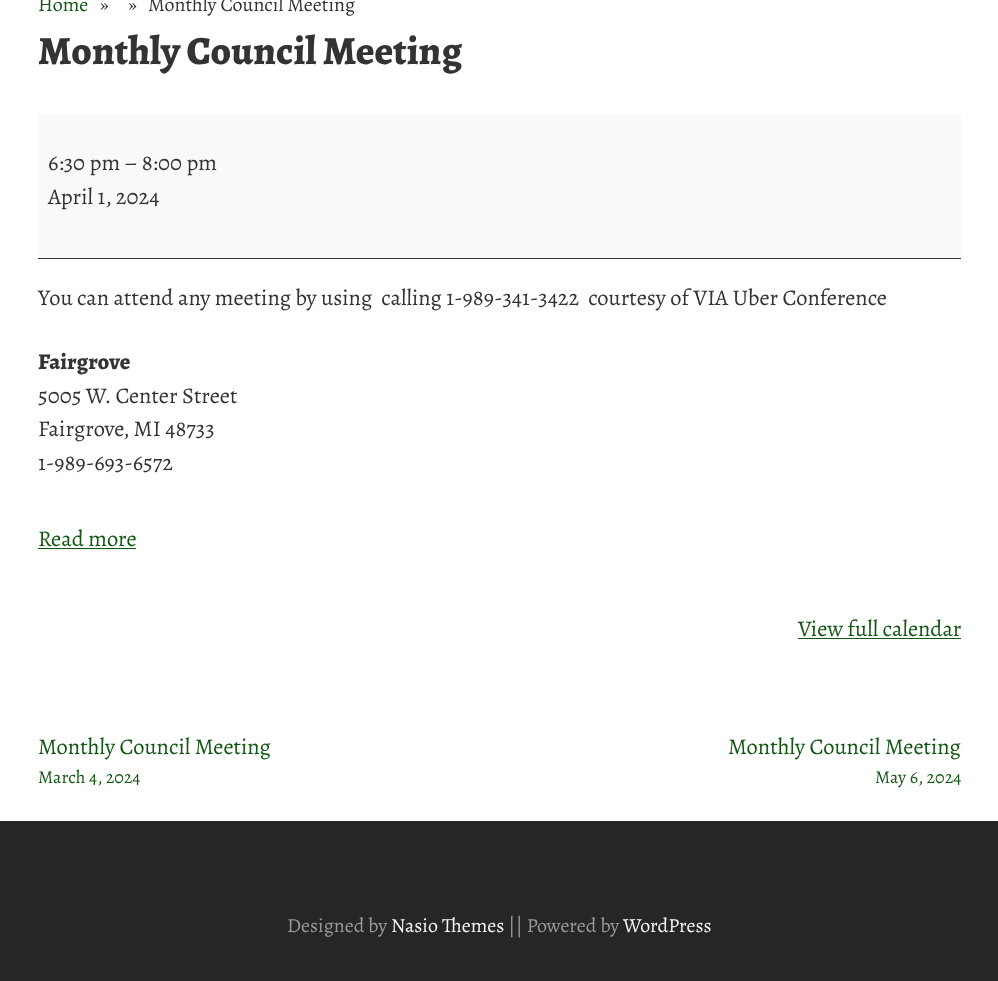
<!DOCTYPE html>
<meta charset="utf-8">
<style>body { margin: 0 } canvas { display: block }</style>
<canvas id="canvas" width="998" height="981"></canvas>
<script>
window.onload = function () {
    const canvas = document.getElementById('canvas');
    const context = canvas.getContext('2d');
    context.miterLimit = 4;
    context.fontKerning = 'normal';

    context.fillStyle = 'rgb(255, 255, 255)';
    context.fillRect(0, 0, 998, 981);
    context.fillStyle = 'rgb(249, 249, 249)';
    context.fillRect(38, 114, 923, 144);
    context.fillStyle = 'rgb(51, 51, 51)';
    context.fillRect(38, 258, 923, 1);
    context.fillStyle = 'rgb(17, 87, 17)';
    context.fillRect(38, 548, 98, 1);
    context.fillRect(798, 638, 163, 1);
    context.fillStyle = 'rgb(38, 38, 38)';
    context.fillRect(0, 821, 998, 160);
    context.font = '20px Alegreya';
    context.fillStyle = 'rgb(17, 87, 17)';
    context.fillText('Home', 38, 11);
    context.fillStyle = 'rgb(51, 51, 51)';
    context.fillText('»     »', 100, 11);
    context.fillText('Monthly Council Meeting', 148, 11);
    context.font = '800 40px Alegreya';
    context.fillText('Monthly Council Meeting', 38, 64);
    context.font = '22.5px Alegreya';
    context.fillText('6:30 pm', 48, 170);
    context.fillText('– 8:00 pm', 124, 170);
    context.fillText('April 1, 2024', 48, 204);
    context.fillText('You can attend any meeting by using  calling 1-989-341-3422  courtesy of VIA Uber Conference', 38, 305);
    context.font = '800 22.5px Alegreya';
    context.fillText('Fairgrove', 38, 369);
    context.font = '22.5px Alegreya';
    context.fillText('5005 W. Center Street', 38, 403);
    context.fillText('Fairgrove', 38, 436);
    context.fillText(', MI 48733', 123, 436);
    context.fillText('1-989-693-6572', 38, 470);
    context.fillStyle = 'rgb(17, 87, 17)';
    context.fillText('Read more', 38, 546);
    context.fillText('View full calendar', 798, 636);
    context.fillText('Monthly Council Meeting', 38, 754);
    context.font = '18px Alegreya';
    context.fillText('March 4, 2024', 38, 783);
    context.font = '22.5px Alegreya';
    context.fillText('Monthly Council Meeting', 728, 754);
    context.font = '18px Alegreya';
    context.fillText('May 6, 2024', 875, 783);
    context.font = '20px Alegreya';
    context.fillStyle = 'rgb(153, 153, 153)';
    context.fillText('Designed by', 287, 932);
    context.fillStyle = 'rgb(245, 245, 245)';
    context.fillText('Nasio Themes', 391, 932);
    context.fillStyle = 'rgb(153, 153, 153)';
    context.fillText('|| Powered by', 508, 932);
    context.fillStyle = 'rgb(245, 245, 245)';
    context.fillText('WordPress', 623, 932);
};
</script>
